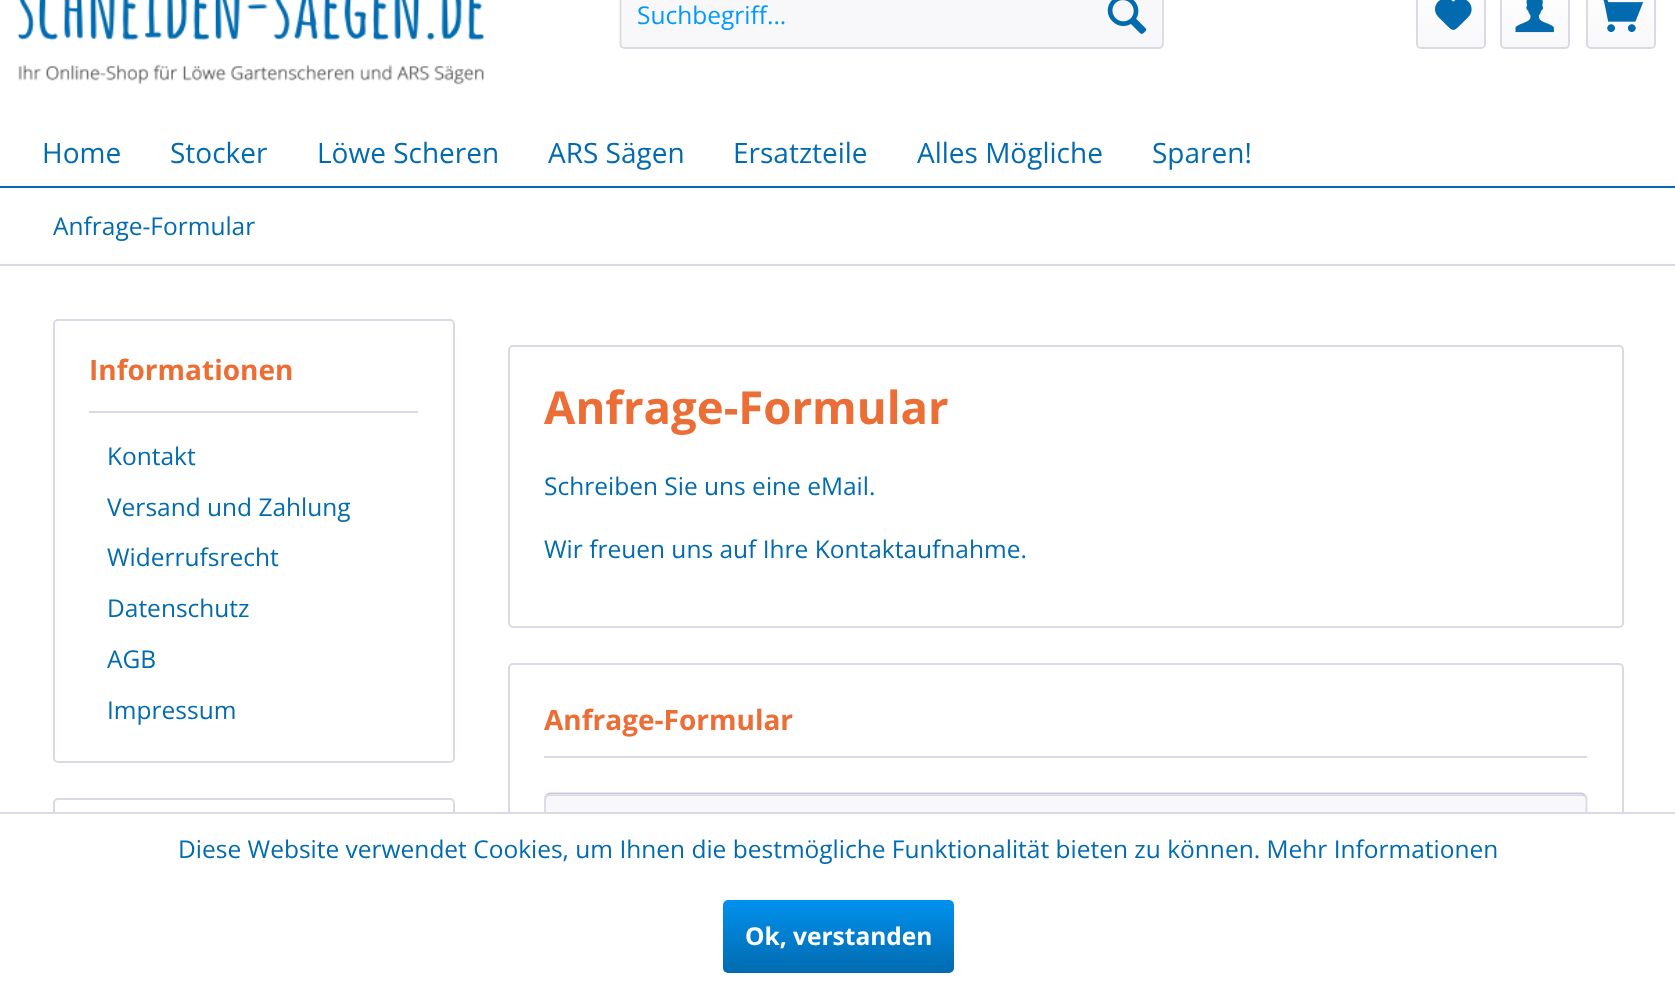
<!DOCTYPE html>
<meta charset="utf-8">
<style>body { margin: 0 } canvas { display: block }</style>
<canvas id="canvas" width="1675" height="989"></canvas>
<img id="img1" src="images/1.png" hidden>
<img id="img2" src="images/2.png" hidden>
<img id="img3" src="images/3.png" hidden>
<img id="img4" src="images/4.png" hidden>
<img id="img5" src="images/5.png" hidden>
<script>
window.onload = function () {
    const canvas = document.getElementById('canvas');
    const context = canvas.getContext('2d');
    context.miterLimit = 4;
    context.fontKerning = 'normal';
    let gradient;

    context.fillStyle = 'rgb(255, 255, 255)';
    context.fillRect(0, 0, 1675, 989);
    context.drawImage(document.getElementById('img1'), 17, 0, 468, 85);
    context.fillStyle = 'rgb(248, 248, 250)';
    context.beginPath();
    context.roundRect(620, -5, 544, 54, 5);
    context.fill();
    context.beginPath();
    context.moveTo(1161.5, -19);
    context.bezierCurveTo(1162.5, -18, 1163, -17, 1163, -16);
    context.lineTo(1163, 44);
    context.bezierCurveTo(1163, 45, 1162.5, 46, 1161.5, 47);
    context.bezierCurveTo(1161, 47.5, 1159.5, 48, 1158.5, 48);
    context.lineTo(625, 48);
    context.bezierCurveTo(623.5, 48, 622.5, 47.5, 621.5, 47);
    context.bezierCurveTo(621, 46, 620.5, 45, 620.5, 44);
    context.lineTo(620.5, -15.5);
    context.bezierCurveTo(620.5, -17, 621, -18, 621.5, -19);
    context.strokeStyle = 'rgb(218, 218, 229)';
    context.lineWidth = 1.8;
    context.stroke();
    context.drawImage(document.getElementById('img2'), 1107, 0, 40, 34);
    gradient = context.createLinearGradient(1451, -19, 1451, 47);
    gradient.addColorStop(0, 'rgb(255, 255, 255)');
    gradient.addColorStop(1, 'rgb(248, 248, 250)');
    context.fillStyle = gradient;
    context.beginPath();
    context.roundRect(1418, -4, 66, 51, 4);
    context.fill();
    context.beginPath();
    context.roundRect(1417, -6, 68, 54, 4);
    context.lineWidth = 2;
    context.stroke();
    context.drawImage(document.getElementById('img3'), 1435, 0, 37, 30);
    gradient = context.createLinearGradient(1535, -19, 1535, 47);
    gradient.addColorStop(0, 'rgb(255, 255, 255)');
    gradient.addColorStop(1, 'rgb(248, 248, 250)');
    context.fillStyle = gradient;
    context.beginPath();
    context.roundRect(1502, -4, 66, 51, 4);
    context.fill();
    context.beginPath();
    context.roundRect(1501, -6, 68, 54, 4);
    context.stroke();
    context.drawImage(document.getElementById('img4'), 1515, 0, 39, 33);
    gradient = context.createLinearGradient(1621, -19, 1621, 47);
    gradient.addColorStop(0, 'rgb(255, 255, 255)');
    gradient.addColorStop(1, 'rgb(248, 248, 250)');
    context.fillStyle = gradient;
    context.beginPath();
    context.roundRect(1587, -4, 67, 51, 4);
    context.fill();
    context.beginPath();
    context.roundRect(1587, -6, 68, 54, 4);
    context.stroke();
    context.drawImage(document.getElementById('img5'), 1603, 0, 41, 32);
    context.fillStyle = 'rgb(2, 107, 175)';
    context.fillRect(0, 186, 1675, 2);
    context.fillStyle = 'rgb(218, 218, 229)';
    context.fillRect(0, 264, 1675, 2);
    context.beginPath();
    context.roundRect(54, 320, 400, 442, 4);
    context.stroke();
    context.fillRect(89, 411, 329, 2);
    context.beginPath();
    context.roundRect(54, 799, 400, 82, 4);
    context.stroke();
    context.beginPath();
    context.roundRect(509, 346, 1114, 281, 4);
    context.stroke();
    context.beginPath();
    context.roundRect(509, 664, 1114, 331, 4);
    context.stroke();
    context.fillRect(544, 756, 1043, 2);
    context.fillStyle = 'rgb(248, 248, 250)';
    context.beginPath();
    context.roundRect(544, 793, 1043, 103, 5);
    context.fill();
    context.fillStyle = 'rgb(218, 218, 229)';
    context.beginPath();
    context.moveTo(550, 796);
    context.lineTo(1582, 796);
    context.bezierCurveTo(1584, 796, 1586, 798, 1586, 800);
    context.bezierCurveTo(1586, 797, 1585, 795, 1582, 795);
    context.lineTo(550, 795);
    context.bezierCurveTo(547, 795, 546, 797, 546, 800);
    context.bezierCurveTo(546, 798, 548, 796, 550, 796);
    context.closePath();
    context.fill();
    context.beginPath();
    context.moveTo(546.5, 795);
    context.lineTo(549.5, 793.5);
    context.lineTo(1582, 793.5);
    context.lineTo(1585, 795);
    context.strokeStyle = 'rgb(203, 203, 219)';
    context.lineWidth = 1.8;
    context.stroke();
    context.beginPath();
    context.moveTo(1585, 795);
    context.lineTo(1586.5, 798);
    context.lineTo(1586.5, 875.5);
    context.bezierCurveTo(1586.5, 875.5, 1590.5, 895, 1582, 895);
    context.lineTo(549.5, 895);
    context.bezierCurveTo(541, 895, 545, 875.5, 545, 875.5);
    context.lineTo(545, 798);
    context.lineTo(546.5, 795);
    context.strokeStyle = 'rgb(218, 218, 229)';
    context.stroke();
    context.fillStyle = 'rgb(255, 255, 255)';
    context.fillRect(53, 814, 1571, 175);
    context.fillStyle = 'rgb(218, 218, 229)';
    context.fillRect(0, 812, 1675, 2);
    gradient = context.createLinearGradient(838, 900, 838, 973);
    gradient.addColorStop(0, 'rgb(0, 145, 238)');
    gradient.addColorStop(1, 'rgb(2, 107, 175)');
    context.fillStyle = gradient;
    context.beginPath();
    context.roundRect(723, 900, 231, 73, 5);
    context.fill();
    context.font = '24.5px Open Sans';
    context.fillStyle = 'rgb(3, 153, 251)';
    context.fillText('Suchbegriff...', 637, 24);
    context.font = '28px Open Sans';
    context.fillStyle = 'rgb(2, 107, 175)';
    context.fillText('Home', 42, 163);
    context.fillText('Stocker', 170, 163);
    context.fillText('Löwe Scheren', 317, 163);
    context.fillText('ARS Sägen', 548, 163);
    context.fillText('Ersatzteile', 733, 163);
    context.fillText('Alles Mögliche', 917, 163);
    context.fillText('Sparen!', 1152, 163);
    context.font = '24.5px Open Sans';
    context.fillText('Anfrage-Formular', 53, 235);
    context.font = 'bold 28px Open Sans';
    context.fillStyle = 'rgb(235, 110, 54)';
    context.fillText('Informationen', 89, 380);
    context.font = '24.5px Open Sans';
    context.fillStyle = 'rgb(2, 107, 175)';
    context.fillText('Kontakt', 107, 465);
    context.fillText('Versand und Zahlung', 107, 516);
    context.fillText('Widerrufsrecht', 107, 566);
    context.fillText('Datenschutz', 107, 617);
    context.fillText('AGB', 107, 668);
    context.fillText('Impressum', 107, 719);
    context.font = 'bold 45.5px Open Sans';
    context.fillStyle = 'rgb(235, 110, 54)';
    context.fillText('Anfrage-Formular', 544, 424);
    context.font = '24.5px Open Sans';
    context.fillStyle = 'rgb(2, 107, 175)';
    context.fillText('Schreiben Sie uns eine eMail.', 544, 495);
    context.fillText('Wir freuen uns auf Ihre Kontaktaufnahme.', 544, 558);
    context.font = 'bold 28px Open Sans';
    context.fillStyle = 'rgb(235, 110, 54)';
    context.fillText('Anfrage-Formular', 544, 730);
    context.font = '24.5px Open Sans';
    context.fillStyle = 'rgb(2, 107, 175)';
    context.fillText('Diese Website verwendet Cookies, um Ihnen die bestmögliche Funktionalität bieten zu können. Mehr Informationen', 178, 858);
    context.font = 'bold 24.5px Open Sans';
    context.fillStyle = 'rgb(255, 255, 255)';
    context.fillText('Ok, verstanden', 745, 945);
};
</script>
